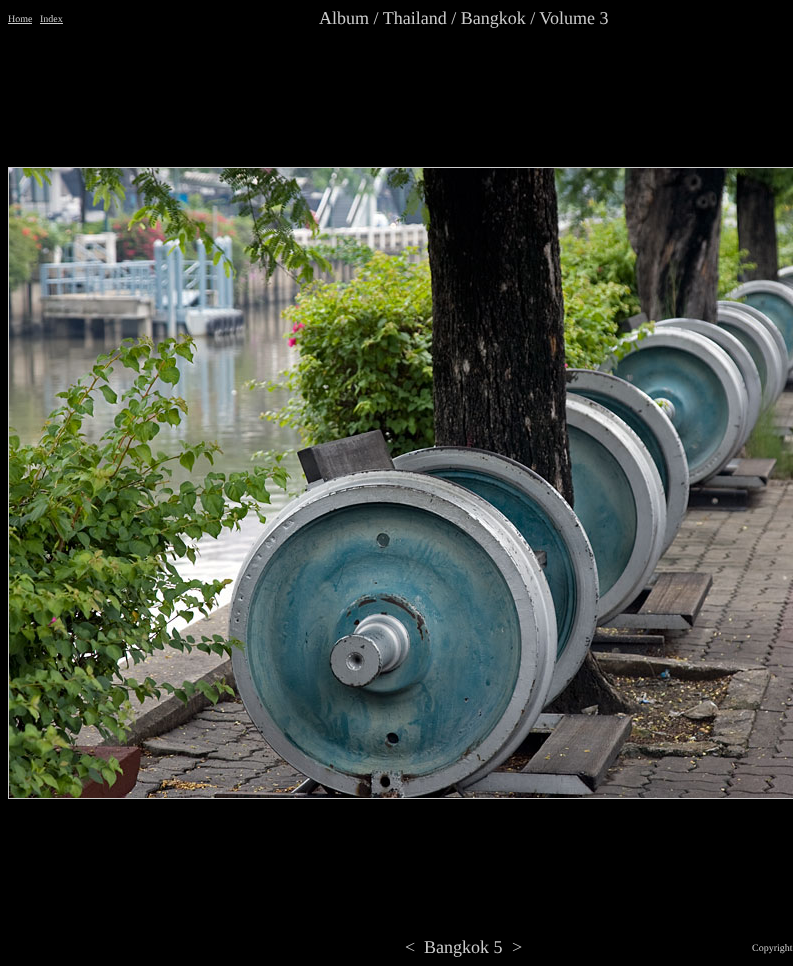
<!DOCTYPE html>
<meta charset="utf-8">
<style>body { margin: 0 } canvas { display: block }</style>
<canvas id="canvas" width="793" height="966"></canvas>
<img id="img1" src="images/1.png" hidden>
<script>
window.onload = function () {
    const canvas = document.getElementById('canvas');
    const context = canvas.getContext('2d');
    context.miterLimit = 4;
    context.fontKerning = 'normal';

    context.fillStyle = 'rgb(0, 0, 0)';
    context.fillRect(0, 0, 793, 966);
    context.fillStyle = 'rgb(204, 204, 204)';
    context.fillRect(8, 23, 24, 1);
    context.fillRect(40, 23, 23, 1);
    context.strokeStyle = 'rgb(204, 204, 204)';
    context.strokeRect(8.5, 167.5, 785, 631);
    context.drawImage(document.getElementById('img1'), 9, 168, 784, 630);
    context.font = '10px Liberation Serif';
    context.fillText('Home', 8, 22);
    context.fillText('Index', 40, 22);
    context.font = '18px Liberation Serif';
    context.fillText('Album / Thailand / Bangkok / Volume 3', 319, 24);
    context.fillText('<', 405, 953);
    context.fillText('Bangkok 5', 424, 953);
    context.fillText('>', 512, 953);
    context.font = '10px Liberation Serif';
    context.fillText('Copyright', 752, 951);
};
</script>
